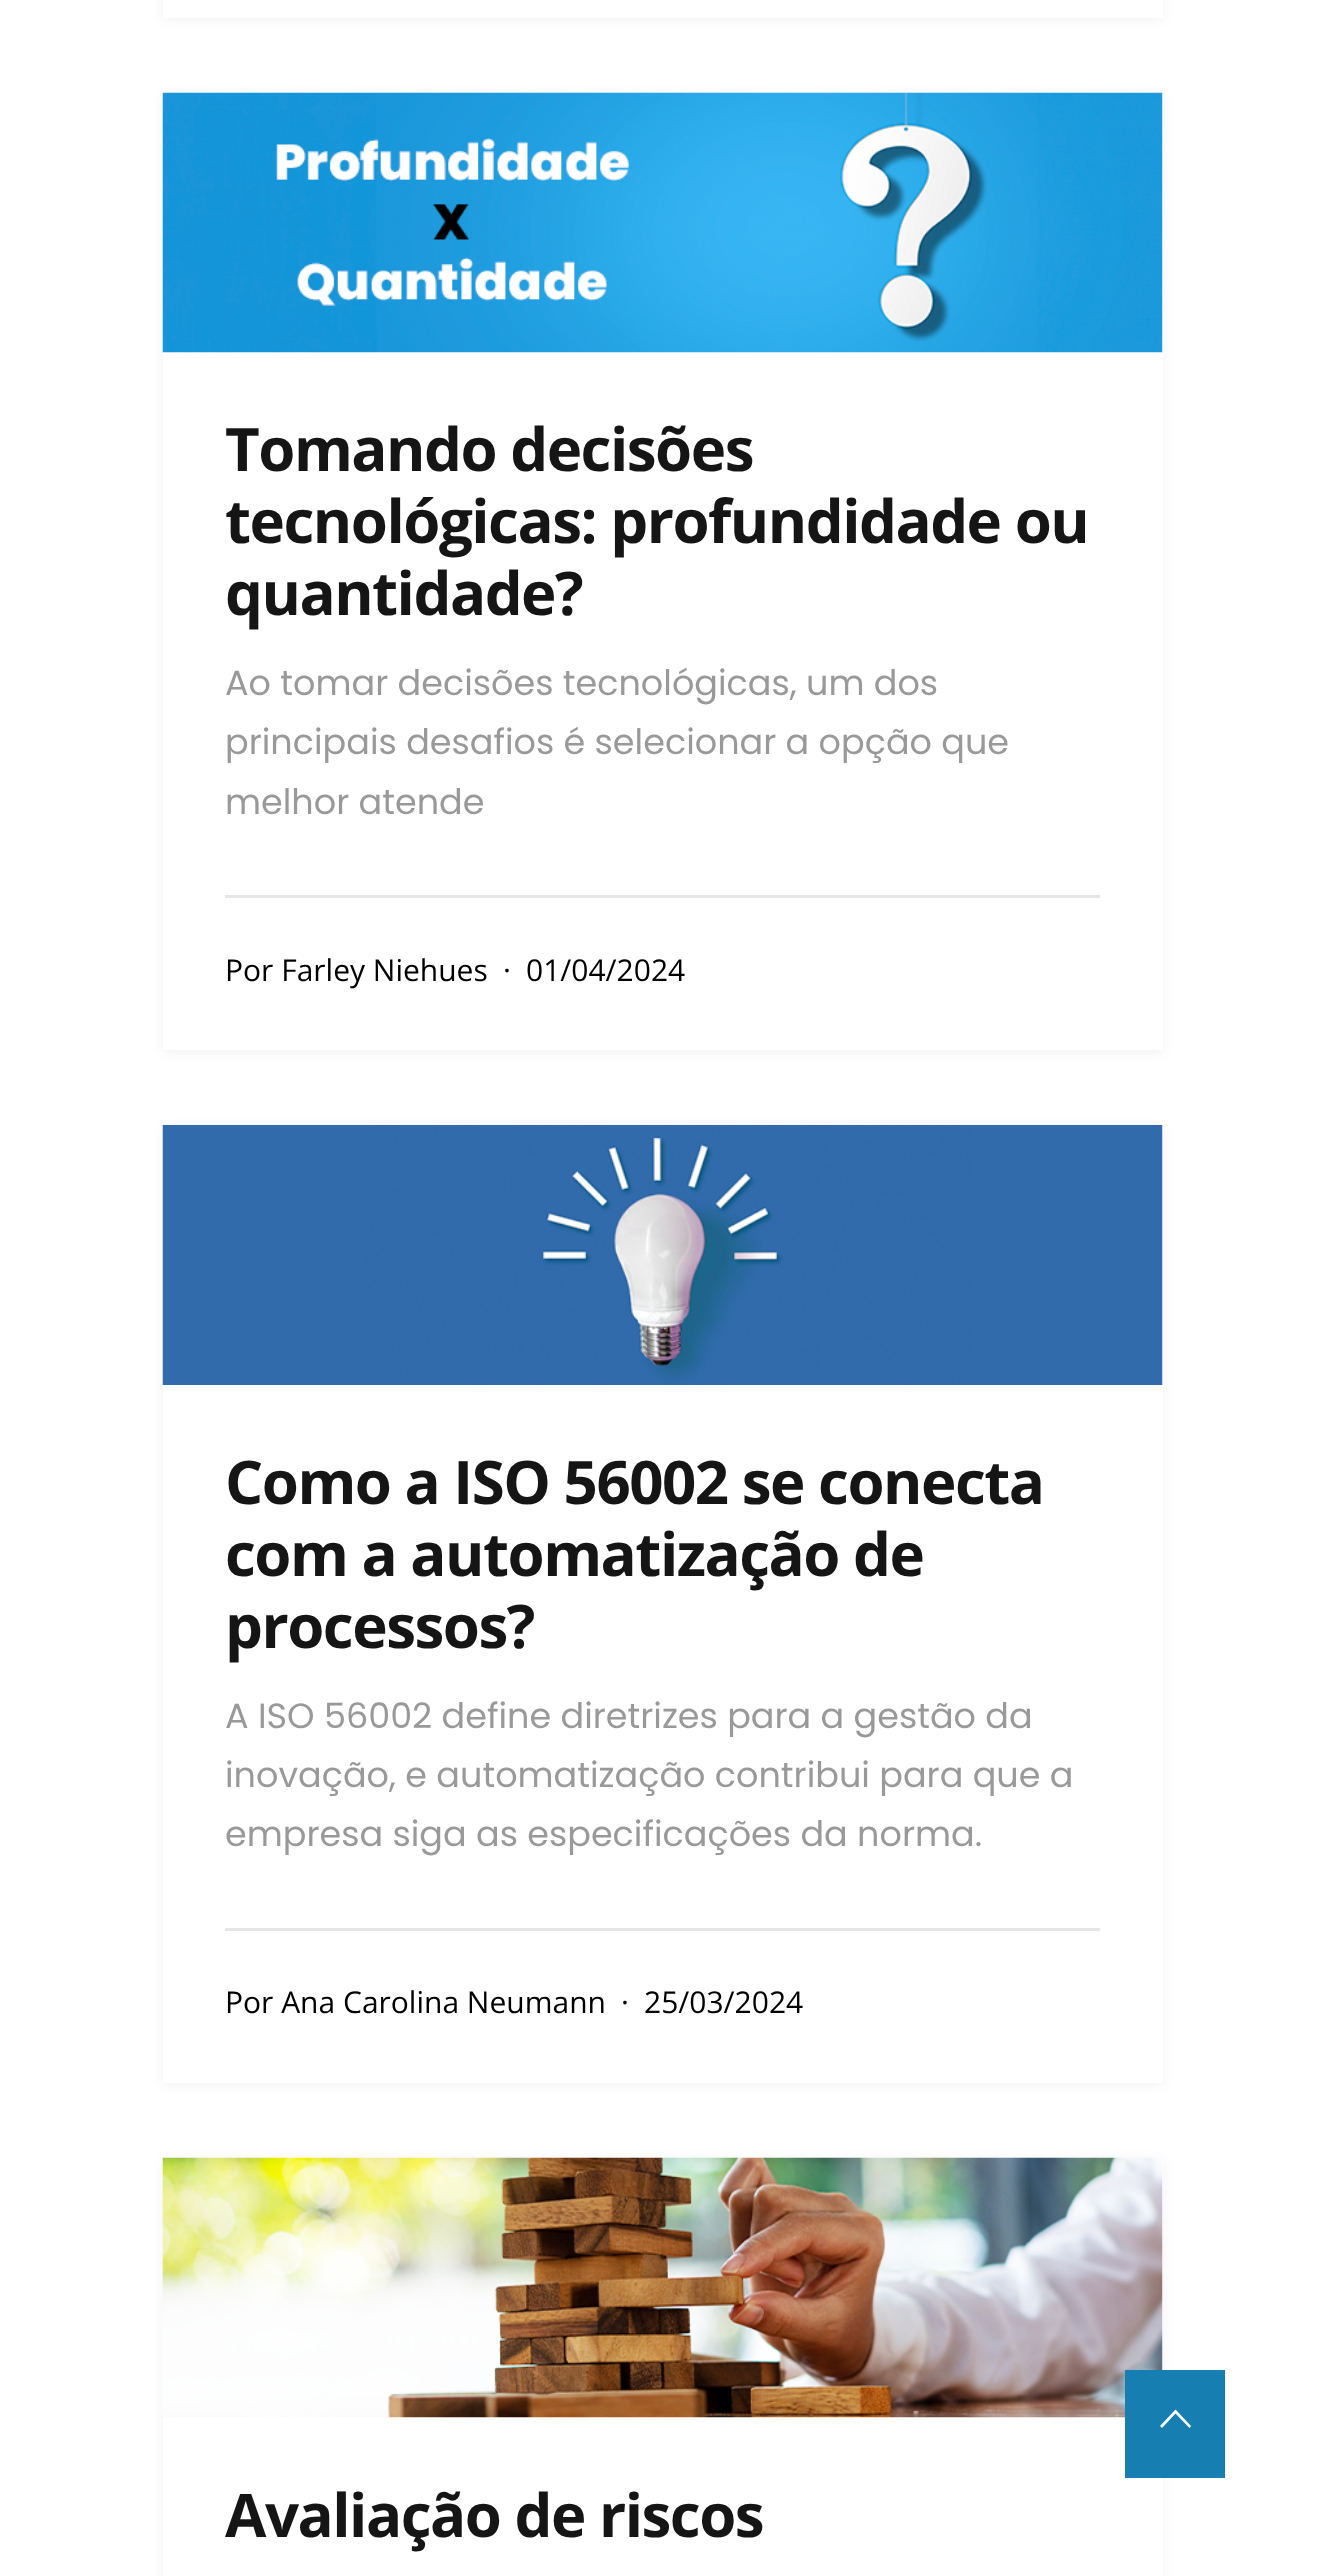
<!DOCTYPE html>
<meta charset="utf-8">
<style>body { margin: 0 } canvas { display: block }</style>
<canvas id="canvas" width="1324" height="2576"></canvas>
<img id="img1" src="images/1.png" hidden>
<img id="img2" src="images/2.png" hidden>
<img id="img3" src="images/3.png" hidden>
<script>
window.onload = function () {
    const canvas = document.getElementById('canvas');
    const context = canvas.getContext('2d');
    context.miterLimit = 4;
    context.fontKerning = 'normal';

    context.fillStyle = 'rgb(255, 255, 255)';
    context.fillRect(0, 0, 1324, 2576);
    context.fillStyle = 'rgba(0, 0, 1, 0.05)';
    context.filter = 'blur(6px)';
    context.beginPath();
    context.rect(163, -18, 1000, 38);
    context.fill();
    context.filter = 'none';
    context.fillStyle = 'rgb(255, 255, 255)';
    context.fillRect(163, 0, 1000, 18);
    context.fillStyle = 'rgba(0, 0, 1, 0.05)';
    context.filter = 'blur(6px)';
    context.beginPath();
    context.rect(163, 95, 1000, 958);
    context.fill();
    context.filter = 'none';
    context.fillStyle = 'rgb(255, 255, 255)';
    context.fillRect(163, 93, 1000, 957);
    context.drawImage(document.getElementById('img1'), 162, 92, 1001, 261);
    context.fillStyle = 'rgb(230, 230, 230)';
    context.fillRect(225, 895, 875, 3);
    context.fillStyle = 'rgba(0, 0, 1, 0.05)';
    context.filter = 'blur(6px)';
    context.beginPath();
    context.rect(163, 1128, 1000, 957);
    context.fill();
    context.filter = 'none';
    context.fillStyle = 'rgb(255, 255, 255)';
    context.fillRect(163, 1125, 1000, 958);
    context.drawImage(document.getElementById('img2'), 162, 1125, 1001, 260);
    context.fillStyle = 'rgb(230, 230, 230)';
    context.fillRect(225, 1928, 875, 3);
    context.fillStyle = 'rgba(0, 0, 1, 0.05)';
    context.filter = 'blur(6px)';
    context.beginPath();
    context.rect(163, 2160, 1000, 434);
    context.fill();
    context.filter = 'none';
    context.fillStyle = 'rgb(255, 255, 255)';
    context.fillRect(163, 2158, 1000, 418);
    context.drawImage(document.getElementById('img3'), 162, 2157, 1001, 261);
    context.fillStyle = 'rgb(23, 126, 177)';
    context.fillRect(1125, 2370, 100, 108);
    context.fillStyle = 'rgb(255, 255, 255)';
    context.beginPath();
    context.moveTo(1189.5, 2428);
    context.lineTo(1175.5, 2413.5);
    context.lineTo(1162, 2428);
    context.lineTo(1160, 2426);
    context.lineTo(1175.5, 2409.5);
    context.lineTo(1191, 2426);
    context.closePath();
    context.fill();
    context.letterSpacing = '-1.5px';
    context.font = 'bold 60px Open Sans';
    context.fillStyle = 'rgb(21, 21, 21)';
    context.fillText('Tomando decisões', 225, 471);
    context.fillText('tecnológicas: profundidade ou', 225, 543);
    context.fillText('quantidade?', 225, 615);
    context.letterSpacing = '0px';
    context.font = '35px Poppins';
    context.fillStyle = 'rgb(153, 153, 153)';
    context.fillText('Ao tomar decisões tecnológicas, um dos', 225, 695);
    context.fillText('principais desafios é selecionar a opção que', 225, 754);
    context.fillText('melhor atende', 225, 814);
    context.font = '30px Open Sans';
    context.fillStyle = 'rgb(0, 0, 0)';
    context.fillText('Por Farley Niehues', 225, 981);
    context.fillText('·', 503, 981);
    context.fillText('01/04/2024', 526, 981);
    context.letterSpacing = '-1.5px';
    context.font = 'bold 60px Open Sans';
    context.fillStyle = 'rgb(21, 21, 21)';
    context.fillText('Como a ISO 56002 se conecta', 225, 1504);
    context.fillText('com a automatização de', 225, 1576);
    context.fillText('processos?', 225, 1648);
    context.letterSpacing = '0px';
    context.font = '35px Poppins';
    context.fillStyle = 'rgb(153, 153, 153)';
    context.fillText('A ISO 56002 define diretrizes para a gestão da', 225, 1728);
    context.fillText('inovação, e automatização contribui para que a', 225, 1787);
    context.fillText('empresa siga as especificações da norma.', 225, 1846);
    context.font = '30px Open Sans';
    context.fillStyle = 'rgb(0, 0, 0)';
    context.fillText('Por Ana Carolina Neumann', 225, 2013);
    context.fillText('·', 621, 2013);
    context.fillText('25/03/2024', 644, 2013);
    context.letterSpacing = '-1.5px';
    context.font = 'bold 60px Open Sans';
    context.fillStyle = 'rgb(21, 21, 21)';
    context.fillText('Avaliação de riscos', 225, 2537);
};
</script>
